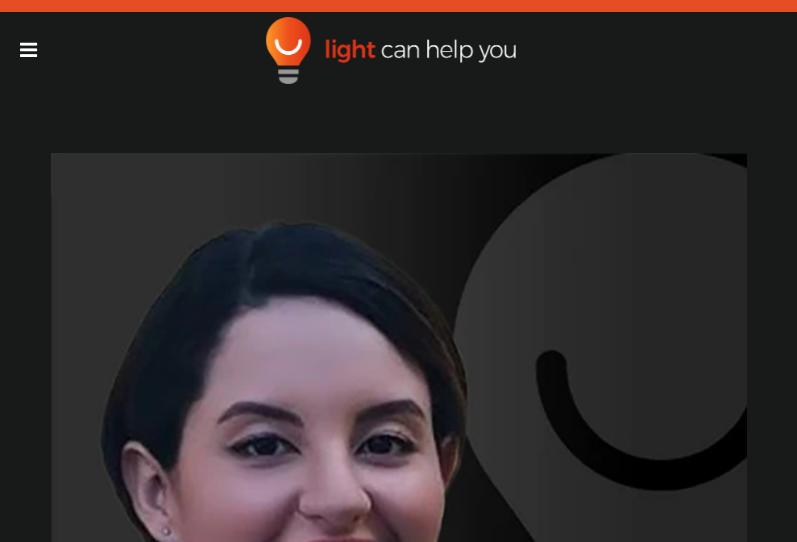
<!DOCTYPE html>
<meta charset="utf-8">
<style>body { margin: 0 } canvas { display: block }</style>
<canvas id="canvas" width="797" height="542"></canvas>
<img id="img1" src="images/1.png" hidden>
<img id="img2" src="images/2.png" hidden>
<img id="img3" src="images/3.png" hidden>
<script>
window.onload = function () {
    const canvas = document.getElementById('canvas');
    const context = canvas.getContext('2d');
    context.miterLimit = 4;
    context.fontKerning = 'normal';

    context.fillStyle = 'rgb(24, 26, 25)';
    context.fillRect(0, 0, 797, 542);
    context.fillStyle = 'rgb(230, 77, 37)';
    context.fillRect(0, 0, 797, 12);
    context.drawImage(document.getElementById('img1'), 265, 17, 251, 67);
    context.drawImage(document.getElementById('img2'), 51, 153, 696, 389);
    context.drawImage(document.getElementById('img3'), 20, 42, 18, 15);
};
</script>
